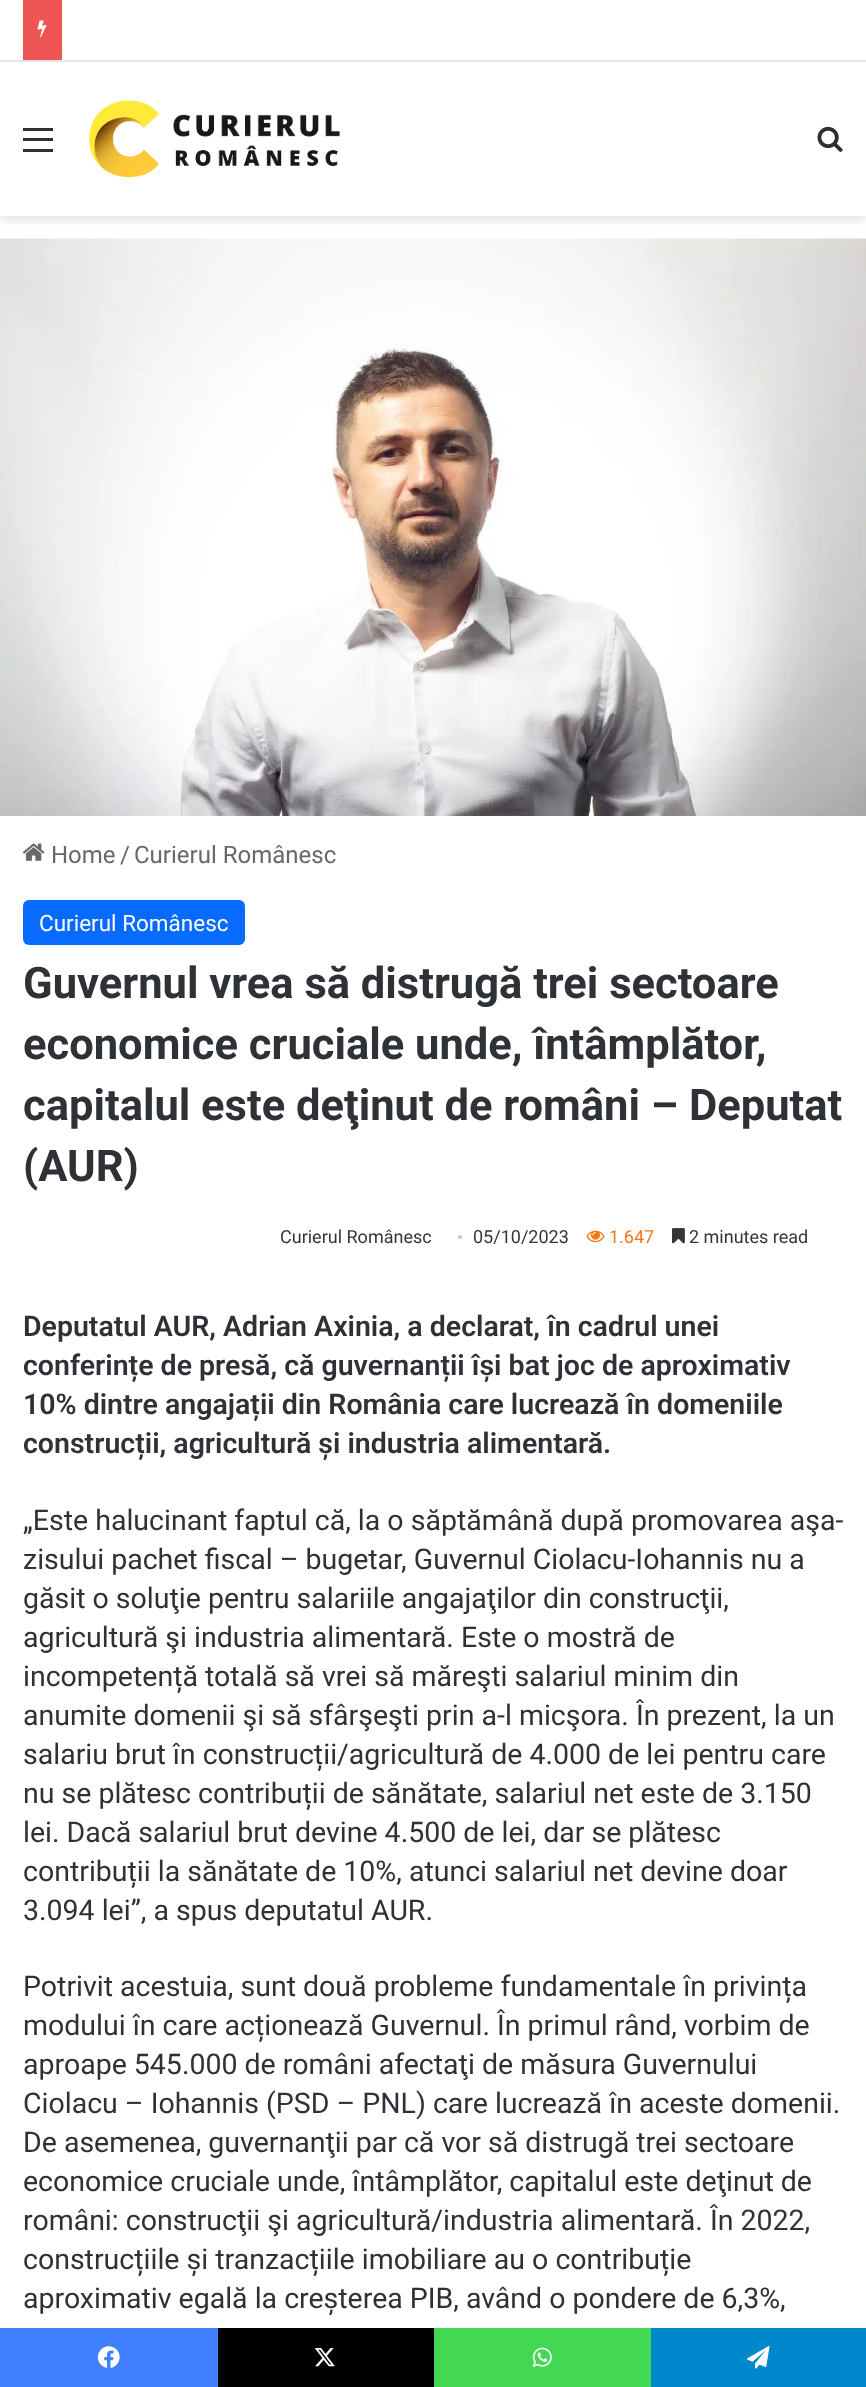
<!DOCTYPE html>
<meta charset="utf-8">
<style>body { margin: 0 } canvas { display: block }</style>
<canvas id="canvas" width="866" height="2387"></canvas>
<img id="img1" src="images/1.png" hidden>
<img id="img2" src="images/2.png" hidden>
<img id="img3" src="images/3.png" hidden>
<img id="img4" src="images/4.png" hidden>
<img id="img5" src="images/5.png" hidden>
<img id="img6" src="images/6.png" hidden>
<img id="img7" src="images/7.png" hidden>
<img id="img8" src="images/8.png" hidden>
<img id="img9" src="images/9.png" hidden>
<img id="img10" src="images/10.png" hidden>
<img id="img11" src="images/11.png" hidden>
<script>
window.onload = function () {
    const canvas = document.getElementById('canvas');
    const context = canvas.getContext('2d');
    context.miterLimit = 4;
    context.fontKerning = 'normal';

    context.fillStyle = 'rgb(255, 255, 255)';
    context.fillRect(0, 0, 866, 2387);
    context.save();
    context.beginPath();
    context.rect(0, 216, 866, 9);
    context.clip();
    context.fillStyle = 'rgba(0, 0, 0, 0.1)';
    context.filter = 'blur(5px)';
    context.beginPath();
    context.rect(0, 66, 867, 155);
    context.fill();
    context.filter = 'none';
    context.restore();
    context.fillStyle = 'rgb(230, 230, 230)';
    context.fillRect(0, 60, 866, 2);
    context.fillStyle = 'rgb(240, 85, 85)';
    context.fillRect(23, 0, 39, 60);
    context.drawImage(document.getElementById('img1'), 37, 20, 10, 18);
    context.fillStyle = 'rgb(44, 47, 52)';
    context.fillRect(23, 138, 30, 3);
    context.fillRect(23, 128, 30, 3);
    context.fillRect(23, 149, 30, 3);
    context.drawImage(document.getElementById('img2'), 89, 100, 251, 78);
    context.drawImage(document.getElementById('img3'), 817, 126, 26, 26);
    context.drawImage(document.getElementById('img4'), 0, 238, 866, 578);
    context.drawImage(document.getElementById('img5'), 22, 843, 23, 18);
    context.fillStyle = 'rgb(8, 107, 255)';
    context.beginPath();
    context.roundRect(23, 900, 222, 45, 6);
    context.fill();
    context.drawImage(document.getElementById('img6'), 586, 1230, 19, 13);
    context.drawImage(document.getElementById('img7'), 672, 1228, 13, 16);
    context.fillStyle = 'rgb(64, 128, 255)';
    context.fillRect(0, 2328, 218, 59);
    context.drawImage(document.getElementById('img8'), 97, 2346, 23, 22);
    context.fillStyle = 'rgb(0, 0, 0)';
    context.fillRect(218, 2328, 216, 59);
    context.drawImage(document.getElementById('img9'), 314, 2348, 21, 19);
    context.fillStyle = 'rgb(67, 216, 84)';
    context.fillRect(434, 2328, 217, 59);
    context.drawImage(document.getElementById('img10'), 532, 2347, 20, 20);
    context.fillStyle = 'rgb(0, 136, 204)';
    context.fillRect(651, 2328, 215, 59);
    context.drawImage(document.getElementById('img11'), 747, 2346, 23, 23);
    context.font = '24px Roboto';
    context.fillStyle = 'rgb(104, 104, 104)';
    context.fillText('Home', 51, 863);
    context.fillText('/', 120, 863);
    context.fillText('Curierul Românesc', 134, 863);
    context.font = '22.5px Roboto';
    context.fillStyle = 'rgb(255, 255, 255)';
    context.fillText('Curierul Românesc', 39, 931);
    context.font = 'bold 43.5px Roboto';
    context.fillStyle = 'rgb(46, 49, 54)';
    context.fillText('Guvernul vrea să distrugă trei sectoare', 23, 998);
    context.fillText('economice cruciale unde, întâmplător,', 23, 1059);
    context.fillText('capitalul este deţinut de români – Deputat', 23, 1120);
    context.fillText('(AUR)', 23, 1181);
    context.font = '18px Roboto';
    context.fillStyle = 'rgb(53, 53, 53)';
    context.fillText('Curierul Românesc', 280, 1243);
    context.font = '18px Liberation Serif';
    context.fillStyle = 'rgb(205, 205, 205)';
    context.fillText('•', 457, 1243);
    context.font = '18px Roboto';
    context.fillStyle = 'rgb(53, 53, 53)';
    context.fillText('05/10/2023', 473, 1243);
    context.fillStyle = 'rgb(244, 118, 20)';
    context.fillText('1.647', 609, 1243);
    context.fillStyle = 'rgb(53, 53, 53)';
    context.fillText('2 minutes read', 689, 1243);
    context.font = '600 28.5px Roboto';
    context.fillStyle = 'rgb(46, 49, 54)';
    context.fillText('Deputatul AUR, Adrian Axinia, a declarat, în cadrul unei', 23, 1336);
    context.fillText('conferințe de presă, că guvernanții își bat joc de aproximativ', 23, 1375);
    context.fillText('10% dintre angajații din România care lucrează în domeniile', 23, 1414);
    context.fillText('construcții, agricultură și industria alimentară.', 23, 1453);
    context.font = '28.5px Roboto';
    context.fillText('„Este halucinant faptul că, la o săptămână după promovarea aşa-', 23, 1530);
    context.fillText('zisului pachet fiscal – bugetar, Guvernul Ciolacu-Iohannis nu a', 23, 1569);
    context.fillText('găsit o soluţie pentru salariile angajaţilor din construcţii,', 23, 1608);
    context.fillText('agricultură şi industria alimentară. Este o mostră de', 23, 1647);
    context.fillText('incompetență totală să vrei să măreşti salariul minim din', 23, 1686);
    context.fillText('anumite domenii şi să sfârşeşti prin a-l micşora. În prezent, la un', 23, 1725);
    context.fillText('salariu brut în construcții/agricultură de 4.000 de lei pentru care', 23, 1764);
    context.fillText('nu se plătesc contribuții de sănătate, salariul net este de 3.150', 23, 1803);
    context.fillText('lei. Dacă salariul brut devine 4.500 de lei, dar se plătesc', 23, 1842);
    context.fillText('contribuții la sănătate de 10%, atunci salariul net devine doar', 23, 1881);
    context.fillText('3.094 lei”, a spus deputatul AUR.', 23, 1920);
    context.fillText('Potrivit acestuia, sunt două probleme fundamentale în privința', 23, 1996);
    context.fillText('modului în care acționează Guvernul. În primul rând, vorbim de', 23, 2035);
    context.fillText('aproape 545.000 de români afectaţi de măsura Guvernului', 23, 2074);
    context.fillText('Ciolacu – Iohannis (PSD – PNL) care lucrează în aceste domenii.', 23, 2113);
    context.fillText('De asemenea, guvernanţii par că vor să distrugă trei sectoare', 23, 2152);
    context.fillText('economice cruciale unde, întâmplător, capitalul este deţinut de', 23, 2191);
    context.fillText('români: construcţii şi agricultură/industria alimentară. În 2022,', 23, 2230);
    context.fillText('construcțiile și tranzacțiile imobiliare au o contribuție', 23, 2269);
    context.fillText('aproximativ egală la creșterea PIB, având o pondere de 6,3%,', 23, 2308);
};
</script>
